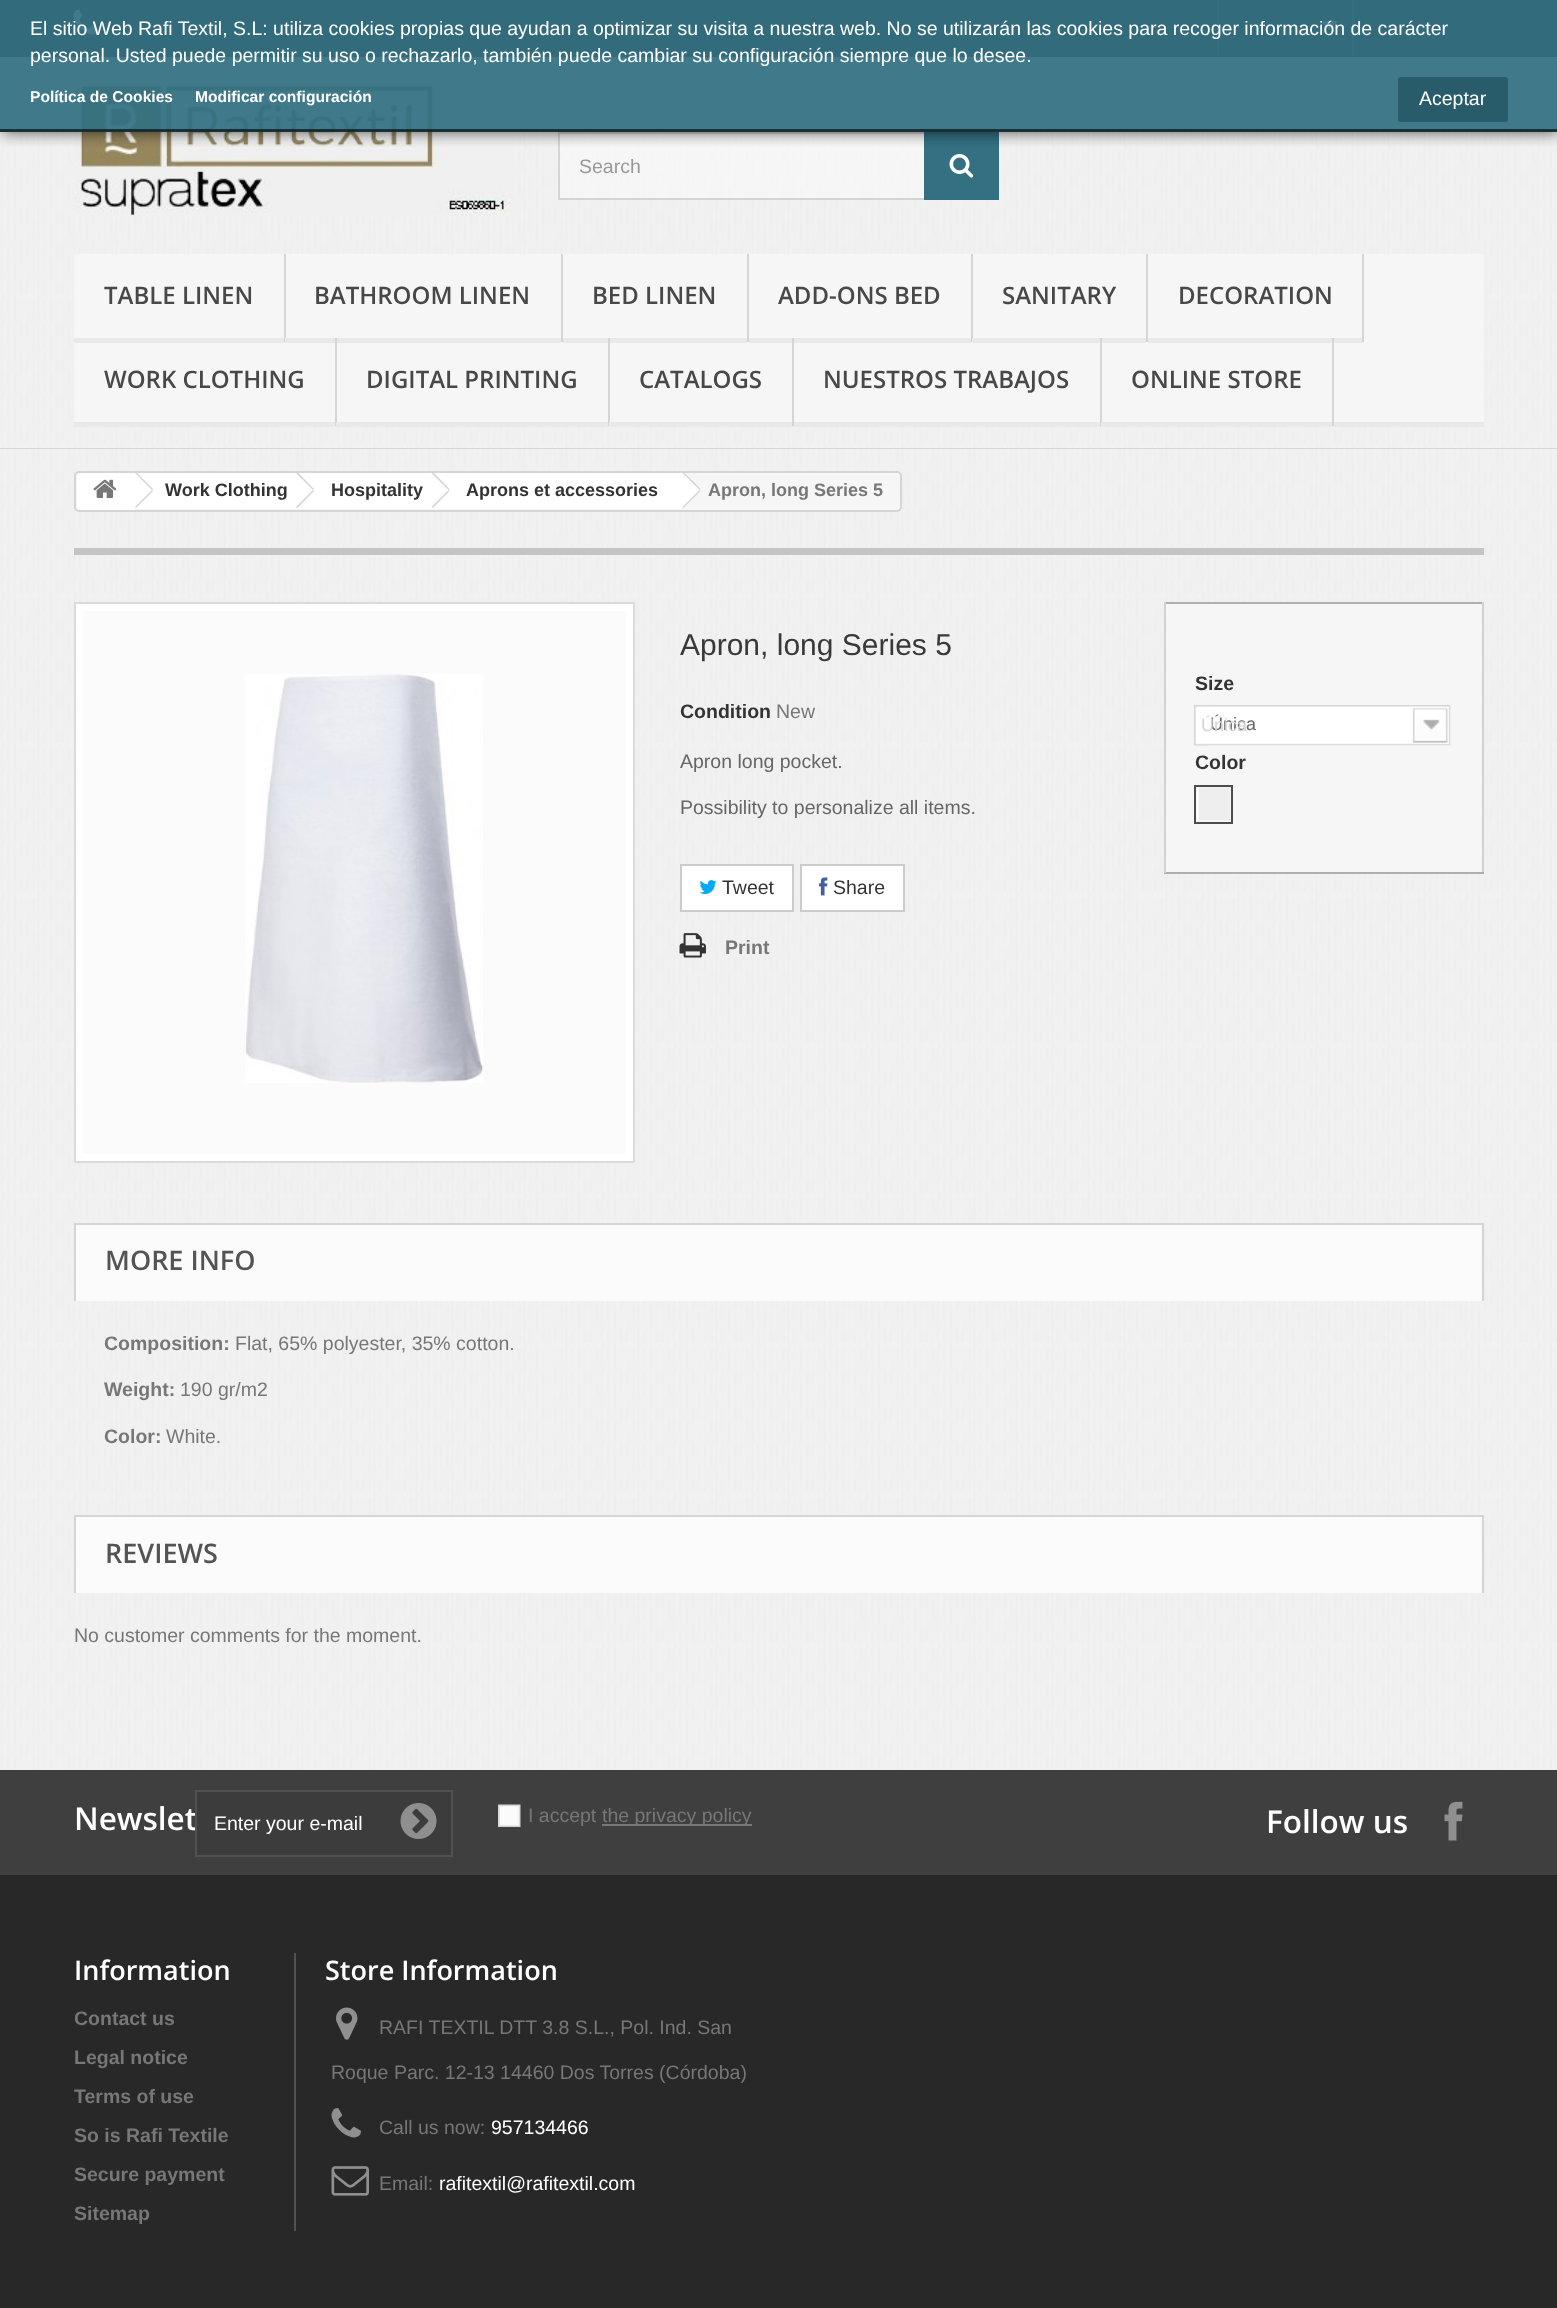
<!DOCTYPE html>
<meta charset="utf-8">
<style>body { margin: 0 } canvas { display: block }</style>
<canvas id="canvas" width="1557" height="2308"></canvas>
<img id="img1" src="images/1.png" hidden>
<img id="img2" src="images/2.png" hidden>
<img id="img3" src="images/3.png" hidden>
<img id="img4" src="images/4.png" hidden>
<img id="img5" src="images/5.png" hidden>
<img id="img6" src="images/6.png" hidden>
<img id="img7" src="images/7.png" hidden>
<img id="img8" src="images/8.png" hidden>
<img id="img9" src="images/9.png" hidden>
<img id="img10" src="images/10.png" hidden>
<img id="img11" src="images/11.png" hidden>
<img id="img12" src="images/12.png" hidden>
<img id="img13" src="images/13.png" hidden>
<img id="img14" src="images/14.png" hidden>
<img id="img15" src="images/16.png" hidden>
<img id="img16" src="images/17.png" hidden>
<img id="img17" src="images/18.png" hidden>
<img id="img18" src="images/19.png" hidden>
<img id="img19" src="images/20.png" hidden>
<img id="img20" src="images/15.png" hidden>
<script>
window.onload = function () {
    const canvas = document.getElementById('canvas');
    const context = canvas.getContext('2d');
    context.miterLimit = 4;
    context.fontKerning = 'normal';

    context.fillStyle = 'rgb(40, 40, 40)';
    context.fillRect(0, 0, 1557, 2308);
    context.drawImage(document.getElementById('img1'), 0, 57, 1557, 392);
    context.fillStyle = 'rgb(51, 51, 51)';
    context.fillRect(0, 0, 1557, 57);
    context.drawImage(document.getElementById('img2'), 73, 9, 26, 26);
    context.fillStyle = 'rgb(81, 81, 81)';
    context.fillRect(1217, 0, 2, 54);
    context.drawImage(document.getElementById('img3'), 1321, 21, 16, 9);
    context.fillRect(1352, 0, 2, 56);
    context.drawImage(document.getElementById('img4'), 73, 79, 440, 137);
    context.fillStyle = 'rgba(248, 248, 248, 0.63)';
    context.fillRect(560, 134, 364, 64);
    context.strokeStyle = 'rgb(214, 212, 212)';
    context.lineWidth = 2;
    context.strokeRect(559, 133, 439, 66);
    context.fillStyle = 'rgb(50, 112, 130)';
    context.fillRect(924, 132, 75, 68);
    context.drawImage(document.getElementById('img5'), 949, 154, 25, 24);
    context.save();
    context.beginPath();
    context.rect(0, 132, 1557, 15);
    context.clip();
    context.fillStyle = 'rgba(0, 0, 0, 0.67)';
    context.filter = 'blur(8px)';
    context.beginPath();
    context.rect(2, 0, 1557, 132);
    context.fill();
    context.filter = 'none';
    context.restore();
    context.fillStyle = 'rgba(50, 112, 130, 0.93)';
    context.fillRect(0, 0, 1557, 132);
    context.fillStyle = 'rgba(0, 0, 0, 0.6)';
    context.fillRect(0, 129, 1557, 3);
    context.fillStyle = 'rgb(41, 92, 107)';
    context.beginPath();
    context.roundRect(1399.5, 78.5, 107, 42, 1.5);
    context.fill();
    context.strokeStyle = 'rgb(41, 92, 107)';
    context.lineWidth = 3;
    context.stroke();
    context.drawImage(document.getElementById('img6'), 0, 448, 1557, 1322);
    context.fillStyle = 'rgba(240, 240, 240, 0.5)';
    context.fillRect(0, 448, 1557, 1);
    context.fillStyle = 'rgb(246, 246, 246)';
    context.fillRect(74, 254, 1410, 168);
    context.fillStyle = 'rgb(233, 233, 233)';
    context.fillRect(74, 422, 1410, 5);
    context.fillStyle = 'rgb(214, 212, 212)';
    context.fillRect(284, 254, 2, 88);
    context.fillStyle = 'rgb(233, 233, 233)';
    context.fillRect(74, 338, 210, 5);
    context.fillStyle = 'rgb(214, 212, 212)';
    context.fillRect(561, 254, 2, 88);
    context.fillStyle = 'rgb(233, 233, 233)';
    context.fillRect(285, 338, 276, 5);
    context.fillStyle = 'rgb(214, 212, 212)';
    context.fillRect(747, 254, 2, 88);
    context.fillStyle = 'rgb(233, 233, 233)';
    context.fillRect(563, 338, 184, 5);
    context.fillStyle = 'rgb(214, 212, 212)';
    context.fillRect(971, 254, 2, 88);
    context.fillStyle = 'rgb(233, 233, 233)';
    context.fillRect(749, 338, 222, 5);
    context.fillStyle = 'rgb(214, 212, 212)';
    context.fillRect(1146, 254, 2, 88);
    context.fillStyle = 'rgb(233, 233, 233)';
    context.fillRect(972, 338, 174, 5);
    context.fillStyle = 'rgb(214, 212, 212)';
    context.fillRect(1362, 254, 2, 88);
    context.fillStyle = 'rgb(233, 233, 233)';
    context.fillRect(1148, 338, 214, 5);
    context.fillStyle = 'rgb(214, 212, 212)';
    context.fillRect(335, 338, 2, 88);
    context.fillRect(608, 338, 2, 88);
    context.fillStyle = 'rgb(233, 233, 233)';
    context.fillRect(336, 422, 1, 4);
    context.fillStyle = 'rgb(214, 212, 212)';
    context.fillRect(792, 338, 2, 88);
    context.fillStyle = 'rgb(233, 233, 233)';
    context.fillRect(609, 422, 1, 4);
    context.fillStyle = 'rgb(214, 212, 212)';
    context.fillRect(1100, 338, 2, 88);
    context.fillRect(1332, 338, 2, 88);
    context.fillStyle = 'rgb(233, 233, 233)';
    context.fillRect(1101, 422, 1, 4);
    context.fillStyle = 'rgb(246, 246, 246)';
    context.beginPath();
    context.roundRect(75, 472, 826, 39, 4);
    context.fill();
    context.strokeStyle = 'rgb(214, 212, 212)';
    context.lineWidth = 2;
    context.stroke();
    context.fillStyle = 'rgb(255, 255, 255)';
    context.beginPath();
    context.roundRect(77, 473, 57, 37, [5, 0, 0, 5]);
    context.fill();
    context.drawImage(document.getElementById('img7'), 93, 479, 24, 19);
    context.fillRect(134, 473, 163, 36);
    context.fillStyle = 'rgb(214, 212, 212)';
    context.beginPath();
    context.moveTo(137, 473);
    context.lineTo(153, 489);
    context.lineTo(152, 490);
    context.lineTo(135, 473);
    context.closePath();
    context.moveTo(152, 490);
    context.lineTo(153, 491);
    context.lineTo(136, 508);
    context.lineTo(135, 507);
    context.closePath();
    context.fill();
    context.fillStyle = 'rgb(255, 255, 255)';
    context.beginPath();
    context.moveTo(313.5, 473);
    context.lineTo(309, 473);
    context.lineTo(294, 488);
    context.bezierCurveTo(293, 489, 293, 491, 294, 492);
    context.lineTo(309, 507);
    context.bezierCurveTo(310.5, 508, 312, 508, 313.5, 507);
    context.lineTo(328, 492);
    context.bezierCurveTo(329.5, 491, 329.5, 489, 328, 488);
    context.closePath();
    context.fill();
    context.fillRect(297, 473, 137, 36);
    context.fillStyle = 'rgb(214, 212, 212)';
    context.beginPath();
    context.moveTo(298.5, 473);
    context.lineTo(314, 489);
    context.lineTo(313, 490);
    context.lineTo(296, 473);
    context.closePath();
    context.moveTo(313, 490);
    context.lineTo(314, 491);
    context.lineTo(297.5, 508);
    context.lineTo(296, 507);
    context.closePath();
    context.fill();
    context.fillStyle = 'rgb(255, 255, 255)';
    context.beginPath();
    context.moveTo(449, 473);
    context.lineTo(444.5, 473);
    context.lineTo(429.5, 488);
    context.bezierCurveTo(428.5, 489, 428.5, 491, 429.5, 492);
    context.lineTo(444.5, 507);
    context.bezierCurveTo(446, 508, 447.5, 508, 449, 507);
    context.lineTo(463.5, 492);
    context.bezierCurveTo(465, 491, 465, 489, 463.5, 488);
    context.closePath();
    context.fill();
    context.fillRect(434, 473, 247, 36);
    context.fillStyle = 'rgb(214, 212, 212)';
    context.beginPath();
    context.moveTo(434, 473);
    context.lineTo(449.5, 489);
    context.lineTo(448.5, 490);
    context.lineTo(431.5, 473);
    context.closePath();
    context.moveTo(448.5, 490);
    context.lineTo(449.5, 491);
    context.lineTo(433, 508);
    context.lineTo(431.5, 507);
    context.closePath();
    context.fill();
    context.fillStyle = 'rgb(255, 255, 255)';
    context.beginPath();
    context.moveTo(684.5, 473);
    context.lineTo(680, 473);
    context.lineTo(665.5, 488);
    context.bezierCurveTo(664, 489, 664, 491, 665.5, 492);
    context.lineTo(680, 507);
    context.bezierCurveTo(681.5, 508, 683.5, 508, 684.5, 507);
    context.lineTo(699.5, 492);
    context.bezierCurveTo(700.5, 491, 700.5, 489, 699.5, 488);
    context.closePath();
    context.fill();
    context.fillStyle = 'rgb(214, 212, 212)';
    context.beginPath();
    context.moveTo(684.5, 473);
    context.lineTo(700.5, 489);
    context.lineTo(699.5, 490);
    context.lineTo(682.5, 473);
    context.closePath();
    context.moveTo(699.5, 490);
    context.lineTo(700.5, 491);
    context.lineTo(683.5, 508);
    context.lineTo(682.5, 507);
    context.closePath();
    context.fill();
    context.fillStyle = 'rgb(196, 196, 196)';
    context.fillRect(74, 548, 1410, 7);
    context.fillStyle = 'rgb(255, 255, 255)';
    context.beginPath();
    context.rect(75, 603, 559, 559);
    context.fill();
    context.strokeStyle = 'rgb(219, 219, 219)';
    context.stroke();
    context.fillStyle = 'rgb(251, 251, 251)';
    context.fillRect(83, 611, 543, 543);
    context.drawImage(document.getElementById('img8'), 245, 674, 238, 409);
    context.fillStyle = 'rgb(255, 255, 255)';
    context.beginPath();
    context.rect(681, 865, 112, 46);
    context.fill();
    context.strokeStyle = 'rgb(204, 204, 204)';
    context.stroke();
    context.drawImage(document.getElementById('img9'), 699, 880, 18, 14);
    context.beginPath();
    context.rect(801, 865, 103, 46);
    context.fill();
    context.stroke();
    context.drawImage(document.getElementById('img10'), 819, 877, 9, 19);
    context.drawImage(document.getElementById('img11'), 679, 933, 27, 25);
    context.fillStyle = 'rgb(246, 246, 246)';
    context.fillRect(1166, 604, 316, 268);
    context.fillStyle = 'rgb(176, 175, 175)';
    context.fillRect(1164, 602, 320, 2);
    context.fillStyle = 'rgb(210, 208, 208)';
    context.fillRect(1482, 602, 2, 271);
    context.fillStyle = 'rgb(176, 175, 175)';
    context.fillRect(1164, 872, 320, 2);
    context.fillStyle = 'rgb(210, 208, 208)';
    context.fillRect(1164, 602, 2, 271);
    context.drawImage(document.getElementById('img12'), 1194, 705, 16, 41);
    context.drawImage(document.getElementById('img13'), 1209, 705, 242, 41);
    context.strokeStyle = 'rgb(77, 77, 77)';
    context.strokeRect(1195, 786, 37, 37);
    context.drawImage(document.getElementById('img14'), 1197, 787, 33, 34);
    context.fillStyle = 'rgb(251, 251, 251)';
    context.fillRect(76, 1225, 1406, 76);
    context.fillStyle = 'rgb(214, 212, 212)';
    context.fillRect(74, 1223, 1410, 2);
    context.fillRect(1482, 1223, 2, 78);
    context.fillRect(74, 1223, 2, 78);
    context.fillStyle = 'rgb(251, 251, 251)';
    context.fillRect(76, 1517, 1406, 76);
    context.fillStyle = 'rgb(214, 212, 212)';
    context.fillRect(74, 1515, 1410, 2);
    context.fillRect(1482, 1515, 2, 78);
    context.fillRect(74, 1515, 2, 78);
    context.fillStyle = 'rgb(63, 63, 63)';
    context.fillRect(0, 1770, 1557, 105);
    context.drawImage(document.getElementById('img15'), 498, 1804, 23, 23);
    context.fillStyle = 'rgb(119, 119, 119)';
    context.fillRect(602, 1824, 150, 2);
    context.drawImage(document.getElementById('img16'), 1444, 1801, 19, 40);
    context.fillStyle = 'rgb(81, 81, 81)';
    context.fillRect(294, 1953, 2, 278);
    context.drawImage(document.getElementById('img17'), 336, 2007, 22, 33);
    context.drawImage(document.getElementById('img18'), 331, 2108, 30, 30);
    context.drawImage(document.getElementById('img19'), 331, 2166, 38, 30);
    context.font = '19.5px Liberation Sans';
    context.fillStyle = 'rgb(255, 255, 255)';
    context.fillText('El sitio Web Rafi Textil, S.L: utiliza cookies propias que ayudan a optimizar su visita a nuestra web. No se utilizarán las cookies para recoger información de carácter', 30, 35);
    context.fillText('personal. Usted puede permitir su uso o rechazarlo, también puede cambiar su configuración siempre que lo desee.', 30, 62);
    context.font = 'bold 15.6px Liberation Sans';
    context.fillText('Política de Cookies', 30, 102);
    context.fillText('Modificar configuración', 195, 102);
    context.font = '19.5px Liberation Sans';
    context.fillText('Aceptar', 1419, 105);
    context.fillStyle = 'rgb(153, 153, 153)';
    context.fillText('Search', 579, 173);
    context.font = '600 24px Open Sans';
    context.fillStyle = 'rgb(72, 72, 72)';
    context.fillText('TABLE LINEN', 104, 304);
    context.fillText('BATHROOM LINEN', 314, 304);
    context.fillText('BED LINEN', 592, 304);
    context.fillText('ADD-ONS BED', 778, 304);
    context.fillText('SANITARY', 1002, 304);
    context.fillText('DECORATION', 1178, 304);
    context.fillText('WORK CLOTHING', 104, 388);
    context.fillText('DIGITAL PRINTING', 366, 388);
    context.fillText('CATALOGS', 639, 388);
    context.fillText('NUESTROS TRABAJOS', 823, 388);
    context.fillText('ONLINE STORE', 1131, 388);
    context.font = 'bold 18px Liberation Sans';
    context.fillStyle = 'rgb(51, 51, 51)';
    context.fillText('Work Clothing', 165, 496);
    context.fillText('Hospitality', 331, 496);
    context.fillText('Aprons et accessories', 466, 496);
    context.fillStyle = 'rgb(119, 119, 119)';
    context.fillText('Apron, long Series 5', 708, 496);
    context.font = '30px Liberation Sans';
    context.fillStyle = 'rgb(58, 57, 57)';
    context.fillText('Apron, long Series 5', 680, 655);
    context.font = 'bold 19.5px Liberation Sans';
    context.fillStyle = 'rgb(51, 51, 51)';
    context.fillText('Condition', 680, 718);
    context.font = '19.5px Liberation Sans';
    context.fillStyle = 'rgb(119, 119, 119)';
    context.fillText('New', 776, 718);
    context.fillStyle = 'rgb(102, 102, 102)';
    context.fillText('Apron long pocket.', 680, 768);
    context.fillText('Possibility to personalize all items.', 680, 814);
    context.fillStyle = 'rgb(51, 51, 51)';
    context.fillText('Tweet', 722, 894);
    context.fillText('Share', 833, 894);
    context.font = 'bold 19.5px Liberation Sans';
    context.fillStyle = 'rgb(119, 119, 119)';
    context.fillText('Print', 725, 954);
    context.fillStyle = 'rgb(51, 51, 51)';
    context.fillText('Size', 1195, 690);
    context.font = '18px Liberation Sans';
    context.fillStyle = 'rgb(102, 102, 102)';
    context.fillText('Única', 1210, 730);
    context.fillStyle = 'rgb(212, 212, 212)';
    context.fillText('Única', 1201, 731);
    context.font = 'bold 19.5px Liberation Sans';
    context.fillStyle = 'rgb(51, 51, 51)';
    context.fillText('Color', 1195, 769);
    context.font = '600 27px Open Sans';
    context.fillStyle = 'rgb(85, 84, 84)';
    context.fillText('MORE INFO', 105, 1270);
    context.font = 'bold 19.5px Liberation Sans';
    context.fillStyle = 'rgb(119, 119, 119)';
    context.fillText('Composition:', 104, 1350);
    context.font = '19.5px Liberation Sans';
    context.fillText('Flat, 65% polyester, 35% cotton.', 235, 1350);
    context.font = 'bold 19.5px Liberation Sans';
    context.fillText('Weight:', 104, 1396);
    context.font = '19.5px Liberation Sans';
    context.fillText('190 gr/m2', 180, 1396);
    context.font = 'bold 19.5px Liberation Sans';
    context.fillText('Color:', 104, 1443);
    context.font = '19.5px Liberation Sans';
    context.fillText('White.', 166, 1443);
    context.font = '600 27px Open Sans';
    context.fillStyle = 'rgb(85, 84, 84)';
    context.fillText('REVIEWS', 105, 1563);
    context.font = '19.5px Liberation Sans';
    context.fillStyle = 'rgb(119, 119, 119)';
    context.fillText('No customer comments for the moment.', 74, 1642);
    context.font = '600 31.5px Open Sans';
    context.fillStyle = 'rgb(255, 255, 255)';
    context.fillText('Newslet', 74, 1830);
    context.fillStyle = 'rgb(60, 60, 60)';
    context.beginPath();
    context.rect(196, 1791, 256, 65);
    context.fill();
    context.strokeStyle = 'rgb(81, 81, 81)';
    context.stroke();
    context.font = '19.5px Liberation Sans';
    context.fillStyle = 'rgb(255, 255, 255)';
    context.fillText('Enter your e-mail', 214, 1830);
    context.drawImage(document.getElementById('img20'), 400, 1803, 37, 36);
    context.fillStyle = 'rgb(119, 119, 119)';
    context.fillText('I accept', 528, 1822);
    context.fillText('the privacy policy', 602, 1822);
    context.font = '600 31.5px Open Sans';
    context.fillStyle = 'rgb(255, 255, 255)';
    context.fillText('Follow us', 1266, 1833);
    context.font = '600 27px Open Sans';
    context.fillText('Information', 74, 1980);
    context.font = 'bold 19.5px Liberation Sans';
    context.fillStyle = 'rgb(119, 119, 119)';
    context.fillText('Contact us', 74, 2025);
    context.fillText('Legal notice', 74, 2064);
    context.fillText('Terms of use', 74, 2103);
    context.fillText('So is Rafi Textile', 74, 2142);
    context.fillText('Secure payment', 74, 2181);
    context.fillText('Sitemap', 74, 2220);
    context.font = '600 27px Open Sans';
    context.fillStyle = 'rgb(255, 255, 255)';
    context.fillText('Store Information', 325, 1980);
    context.font = '19.5px Liberation Sans';
    context.fillStyle = 'rgb(119, 119, 119)';
    context.fillText('RAFI TEXTIL DTT 3.8 S.L., Pol. Ind. San', 379, 2034);
    context.fillText('Roque Parc. 12-13 14460 Dos Torres (Córdoba)', 331, 2079);
    context.fillText('Call us now:', 379, 2134);
    context.fillStyle = 'rgb(255, 255, 255)';
    context.fillText('957134466', 491, 2134);
    context.fillStyle = 'rgb(119, 119, 119)';
    context.fillText('Email:', 379, 2190);
    context.fillStyle = 'rgb(255, 255, 255)';
    context.fillText('rafitextil@rafitextil.com', 439, 2190);
};
</script>
